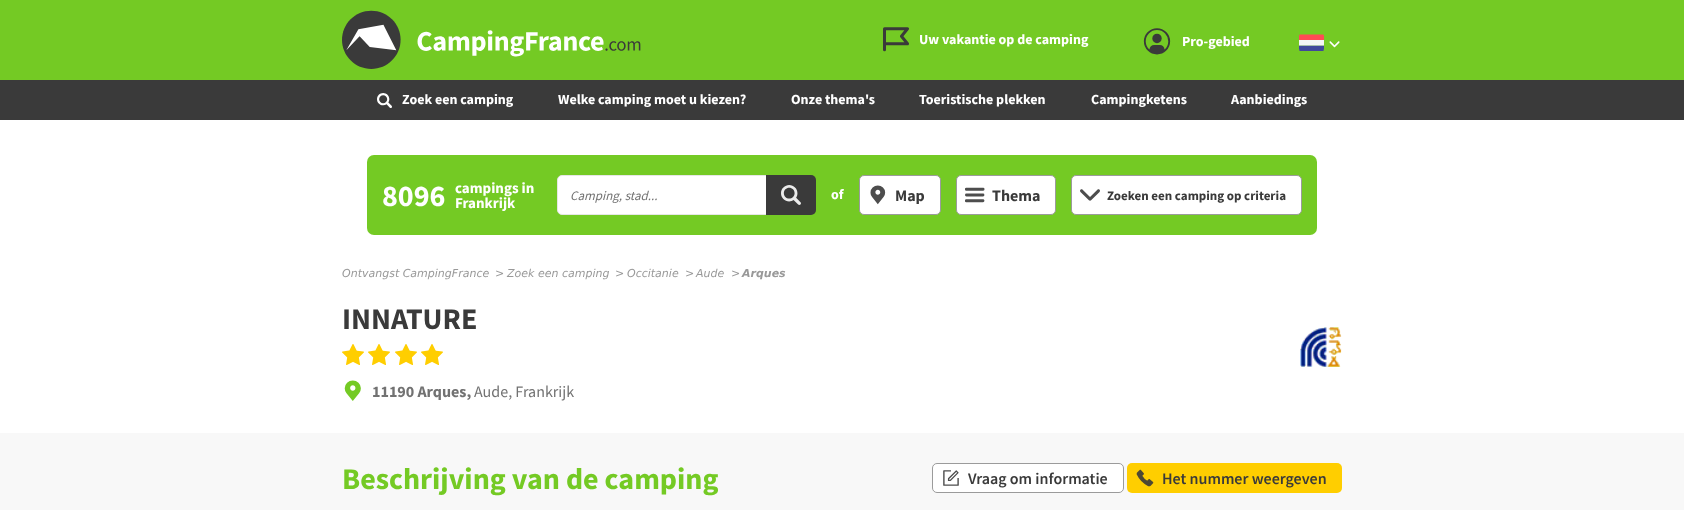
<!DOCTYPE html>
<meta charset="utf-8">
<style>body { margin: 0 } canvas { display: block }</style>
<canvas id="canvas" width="1684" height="510"></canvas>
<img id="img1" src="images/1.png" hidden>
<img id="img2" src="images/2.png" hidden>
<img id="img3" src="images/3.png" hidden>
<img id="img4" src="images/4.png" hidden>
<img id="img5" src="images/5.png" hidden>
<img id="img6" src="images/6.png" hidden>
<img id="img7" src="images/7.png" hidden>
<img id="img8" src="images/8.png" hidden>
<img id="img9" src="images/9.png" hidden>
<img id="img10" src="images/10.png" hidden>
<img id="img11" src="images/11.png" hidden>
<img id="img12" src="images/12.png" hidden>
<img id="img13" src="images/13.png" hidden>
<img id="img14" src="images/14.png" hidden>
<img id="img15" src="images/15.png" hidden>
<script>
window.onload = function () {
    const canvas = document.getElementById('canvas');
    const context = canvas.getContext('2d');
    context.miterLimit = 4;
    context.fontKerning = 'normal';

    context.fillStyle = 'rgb(255, 255, 255)';
    context.fillRect(0, 0, 1684, 510);
    context.fillStyle = 'rgb(58, 58, 58)';
    context.fillRect(0, 80, 1684, 40);
    context.fillStyle = 'rgb(116, 202, 36)';
    context.fillRect(0, 0, 1684, 80);
    context.drawImage(document.getElementById('img1'), 342, 10, 299, 59);
    context.drawImage(document.getElementById('img2'), 883, 27, 26, 25);
    context.drawImage(document.getElementById('img3'), 1143, 28, 28, 27);
    context.drawImage(document.getElementById('img4'), 1299, 34, 25, 17);
    context.drawImage(document.getElementById('img5'), 1329, 41, 11, 7);
    context.drawImage(document.getElementById('img6'), 377, 93, 15, 15);
    context.beginPath();
    context.roundRect(367, 155, 950, 80, 7);
    context.fill();
    context.fillStyle = 'rgb(255, 255, 255)';
    context.beginPath();
    context.roundRect(557.5, 175.5, 213, 39, 4.5);
    context.fill();
    context.strokeStyle = 'rgb(230, 230, 230)';
    context.stroke();
    context.fillStyle = 'rgb(58, 58, 58)';
    context.beginPath();
    context.roundRect(766, 175, 50, 40, [0, 5, 5, 0]);
    context.fill();
    context.drawImage(document.getElementById('img7'), 781, 185, 20, 20);
    context.fillStyle = 'rgb(255, 255, 255)';
    context.beginPath();
    context.roundRect(859.5, 175.5, 81, 39, 4.5);
    context.fill();
    context.strokeStyle = 'rgb(155, 155, 155)';
    context.stroke();
    context.drawImage(document.getElementById('img8'), 870, 185, 16, 20);
    context.beginPath();
    context.roundRect(956.5, 175.5, 99, 39, 4.5);
    context.fill();
    context.stroke();
    context.drawImage(document.getElementById('img9'), 965, 187, 20, 16);
    context.beginPath();
    context.roundRect(1071.5, 175.5, 230, 39, 4.5);
    context.fill();
    context.stroke();
    context.drawImage(document.getElementById('img10'), 1080, 189, 20, 12);
    context.drawImage(document.getElementById('img11'), 342, 344, 22, 21);
    context.drawImage(document.getElementById('img11'), 368, 344, 22, 21);
    context.drawImage(document.getElementById('img11'), 395, 344, 22, 21);
    context.drawImage(document.getElementById('img11'), 421, 344, 22, 21);
    context.drawImage(document.getElementById('img12'), 344, 380, 17, 21);
    context.drawImage(document.getElementById('img13'), 1300, 327, 42, 40);
    context.fillStyle = 'rgb(248, 248, 248)';
    context.fillRect(0, 433, 1684, 77);
    context.fillStyle = 'rgb(255, 255, 255)';
    context.beginPath();
    context.roundRect(932.5, 463.5, 191, 29, 4.5);
    context.fill();
    context.stroke();
    context.drawImage(document.getElementById('img14'), 943, 470, 16, 16);
    context.fillStyle = 'rgb(255, 206, 0)';
    context.beginPath();
    context.roundRect(1127, 463, 215, 30, 5);
    context.fill();
    context.drawImage(document.getElementById('img15'), 1136, 469, 18, 18);
    context.font = 'bold 14px Source Sans Pro';
    context.fillStyle = 'rgb(255, 255, 255)';
    context.fillText('Uw vakantie op de camping', 919, 44);
    context.fillText('Pro-gebied', 1182, 46);
    context.fillText('Zoek een camping', 402, 104);
    context.fillText('Welke camping moet u kiezen?', 558, 104);
    context.fillText('Onze thema\'s', 791, 104);
    context.fillText('Toeristische plekken', 919, 104);
    context.fillText('Campingketens', 1091, 104);
    context.fillText('Aanbiedings', 1231, 104);
    context.font = 'bold 30px Source Sans Pro';
    context.fillText('8096', 382, 206);
    context.font = 'bold 15px Source Sans Pro';
    context.fillText('campings in', 455, 193);
    context.fillText('Frankrijk', 455, 208);
    context.font = 'italic 13px Source Sans Pro';
    context.fillStyle = 'rgb(114, 114, 114)';
    context.fillText('Camping, stad...', 570, 200);
    context.font = 'bold 14px Source Sans Pro';
    context.fillStyle = 'rgb(255, 255, 255)';
    context.fillText('of', 831, 199);
    context.font = 'bold 16px Source Sans Pro';
    context.fillStyle = 'rgb(58, 58, 58)';
    context.fillText('Map', 895, 201);
    context.fillText('Thema', 992, 201);
    context.font = 'bold 13px Source Sans Pro';
    context.fillText('Zoeken een camping op criteria', 1107, 200);
    context.font = 'italic 11px DejaVu Sans';
    context.fillStyle = 'rgb(153, 153, 153)';
    context.fillText('Ontvangst CampingFrance', 342, 277);
    context.fillText('>', 495, 277);
    context.fillText('Zoek een camping', 507, 277);
    context.fillText('>', 615, 277);
    context.fillText('Occitanie', 627, 277);
    context.fillText('>', 685, 277);
    context.fillText('Aude', 696, 277);
    context.fillText('>', 731, 277);
    context.font = 'italic bold 11px DejaVu Sans';
    context.fillText('Arques', 742, 277);
    context.font = 'bold 30px Source Sans Pro';
    context.fillStyle = 'rgb(58, 58, 58)';
    context.fillText('INNATURE', 342, 329);
    context.font = 'bold 16px Source Sans Pro';
    context.fillStyle = 'rgb(114, 114, 114)';
    context.fillText('11190 Arques,', 372, 397);
    context.font = '16px Source Sans Pro';
    context.fillText('Aude, Frankrijk', 474, 397);
    context.font = 'bold 30px Source Sans Pro';
    context.fillStyle = 'rgb(116, 202, 36)';
    context.fillText('Beschrijving van de camping', 342, 489);
    context.font = '600 16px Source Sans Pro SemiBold';
    context.fillStyle = 'rgb(58, 58, 58)';
    context.fillText('Vraag om informatie', 968, 484);
    context.fillText('Het nummer weergeven', 1162, 484);
};
</script>
